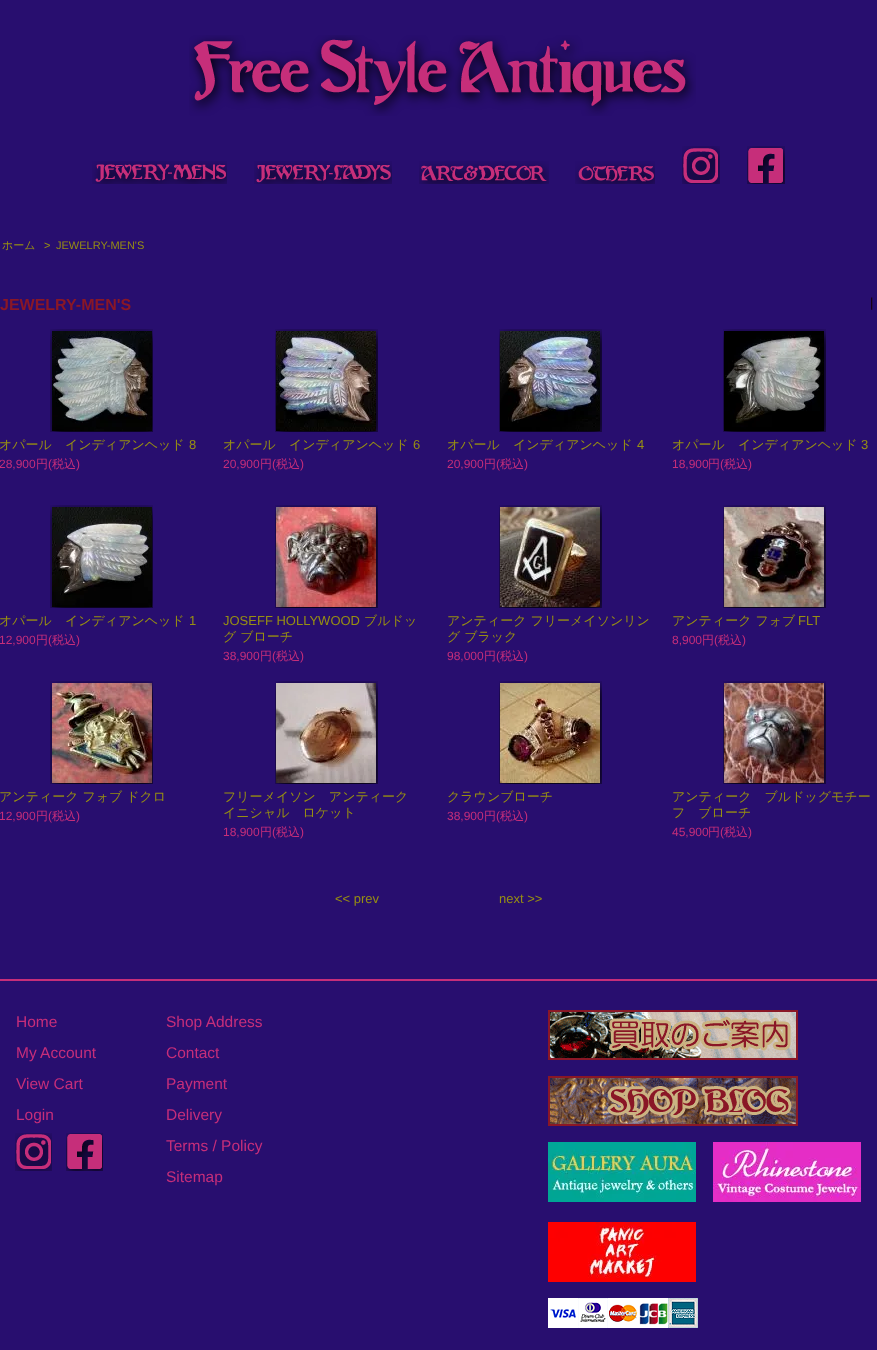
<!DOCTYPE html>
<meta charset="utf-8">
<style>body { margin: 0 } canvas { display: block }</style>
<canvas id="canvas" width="877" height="1350"></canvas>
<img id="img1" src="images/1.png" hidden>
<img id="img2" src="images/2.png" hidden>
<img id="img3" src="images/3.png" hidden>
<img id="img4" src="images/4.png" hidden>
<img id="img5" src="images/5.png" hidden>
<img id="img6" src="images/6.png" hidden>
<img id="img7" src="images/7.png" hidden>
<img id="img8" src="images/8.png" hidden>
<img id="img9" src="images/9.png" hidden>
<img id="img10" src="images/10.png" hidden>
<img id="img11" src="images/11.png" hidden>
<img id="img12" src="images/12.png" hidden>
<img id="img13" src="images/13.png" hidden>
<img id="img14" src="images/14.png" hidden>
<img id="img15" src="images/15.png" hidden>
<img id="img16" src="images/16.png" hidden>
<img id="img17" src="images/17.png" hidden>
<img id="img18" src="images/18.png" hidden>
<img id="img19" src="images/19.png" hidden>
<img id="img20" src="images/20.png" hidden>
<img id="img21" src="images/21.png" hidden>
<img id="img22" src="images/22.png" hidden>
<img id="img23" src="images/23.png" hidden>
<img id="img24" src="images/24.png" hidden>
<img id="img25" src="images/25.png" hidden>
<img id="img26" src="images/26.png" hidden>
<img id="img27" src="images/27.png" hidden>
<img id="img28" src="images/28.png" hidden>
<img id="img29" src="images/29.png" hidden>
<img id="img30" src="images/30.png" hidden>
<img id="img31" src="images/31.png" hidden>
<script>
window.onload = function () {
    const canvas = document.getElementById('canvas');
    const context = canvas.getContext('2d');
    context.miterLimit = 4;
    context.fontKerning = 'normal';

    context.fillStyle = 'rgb(40, 14, 111)';
    context.fillRect(0, 0, 877, 1350);
    context.drawImage(document.getElementById('img1'), 189, 35, 507, 81);
    context.drawImage(document.getElementById('img2'), 92, 161, 135, 23);
    context.drawImage(document.getElementById('img3'), 254, 161, 138, 23);
    context.drawImage(document.getElementById('img4'), 419, 161, 130, 23);
    context.drawImage(document.getElementById('img5'), 575, 161, 80, 23);
    context.drawImage(document.getElementById('img6'), 682, 146, 38, 38);
    context.drawImage(document.getElementById('img7'), 747, 146, 38, 38);
    context.drawImage(document.getElementById('img8'), 50, 329, 103, 103);
    context.drawImage(document.getElementById('img9'), 275, 329, 103, 103);
    context.drawImage(document.getElementById('img10'), 499, 329, 103, 103);
    context.drawImage(document.getElementById('img11'), 723, 329, 103, 103);
    context.drawImage(document.getElementById('img12'), 50, 505, 103, 103);
    context.drawImage(document.getElementById('img13'), 275, 505, 103, 103);
    context.drawImage(document.getElementById('img14'), 499, 505, 103, 103);
    context.drawImage(document.getElementById('img15'), 723, 505, 103, 103);
    context.drawImage(document.getElementById('img16'), 50, 681, 103, 103);
    context.drawImage(document.getElementById('img17'), 275, 681, 103, 103);
    context.drawImage(document.getElementById('img18'), 499, 681, 103, 103);
    context.drawImage(document.getElementById('img19'), 723, 681, 103, 103);
    context.fillStyle = 'rgb(198, 46, 122)';
    context.fillRect(0, 979, 877, 2);
    context.drawImage(document.getElementById('img20'), 15, 1133, 37, 38);
    context.drawImage(document.getElementById('img21'), 66, 1133, 37, 38);
    context.drawImage(document.getElementById('img22'), 548, 1010, 250, 50);
    context.drawImage(document.getElementById('img23'), 548, 1076, 250, 50);
    context.drawImage(document.getElementById('img24'), 548, 1142, 148, 60);
    context.drawImage(document.getElementById('img25'), 713, 1142, 148, 60);
    context.drawImage(document.getElementById('img26'), 548, 1222, 148, 60);
    context.drawImage(document.getElementById('img27'), 548, 1298, 30, 30);
    context.drawImage(document.getElementById('img28'), 578, 1298, 30, 30);
    context.drawImage(document.getElementById('img29'), 608, 1298, 30, 30);
    context.drawImage(document.getElementById('img30'), 638, 1298, 30, 30);
    context.drawImage(document.getElementById('img31'), 668, 1298, 30, 30);
    context.font = '500 11px WenQuanYi Zen Hei';
    context.fillStyle = 'rgb(151, 143, 18)';
    context.fillText('ホーム', 2, 249);
    context.font = '11px Liberation Sans';
    context.fillText('>', 44, 249);
    context.fillText('JEWELRY-MEN\'S', 56, 249);
    context.font = 'bold 16px Liberation Sans';
    context.fillStyle = 'rgb(138, 23, 38)';
    context.fillText('JEWELRY-MEN\'S', 0, 310);
    context.font = '13px Liberation Sans';
    context.fillStyle = 'rgb(24, 0, 0)';
    context.fillText('|', 870, 307);
    context.font = '500 13px WenQuanYi Zen Hei';
    context.fillStyle = 'rgb(151, 143, 18)';
    context.fillText('オパール　インディアンヘッド', -1, 449);
    context.font = '13px Liberation Sans';
    context.fillText('8', 189, 449);
    context.font = '12px Liberation Sans';
    context.fillStyle = 'rgb(198, 46, 122)';
    context.fillText('28,900', -1, 468);
    context.font = '500 12px WenQuanYi Zen Hei';
    context.fillText('円', 36, 468);
    context.font = '12px Liberation Sans';
    context.fillText('(', 48, 468);
    context.font = '500 12px WenQuanYi Zen Hei';
    context.fillText('税込', 52, 468);
    context.font = '12px Liberation Sans';
    context.fillText(')', 76, 468);
    context.font = '500 13px WenQuanYi Zen Hei';
    context.fillStyle = 'rgb(151, 143, 18)';
    context.fillText('オパール　インディアンヘッド', 223, 449);
    context.font = '13px Liberation Sans';
    context.fillText('6', 413, 449);
    context.font = '12px Liberation Sans';
    context.fillStyle = 'rgb(198, 46, 122)';
    context.fillText('20,900', 223, 468);
    context.font = '500 12px WenQuanYi Zen Hei';
    context.fillText('円', 260, 468);
    context.font = '12px Liberation Sans';
    context.fillText('(', 272, 468);
    context.font = '500 12px WenQuanYi Zen Hei';
    context.fillText('税込', 276, 468);
    context.font = '12px Liberation Sans';
    context.fillText(')', 300, 468);
    context.font = '500 13px WenQuanYi Zen Hei';
    context.fillStyle = 'rgb(151, 143, 18)';
    context.fillText('オパール　インディアンヘッド', 447, 449);
    context.font = '13px Liberation Sans';
    context.fillText('4', 637, 449);
    context.font = '12px Liberation Sans';
    context.fillStyle = 'rgb(198, 46, 122)';
    context.fillText('20,900', 447, 468);
    context.font = '500 12px WenQuanYi Zen Hei';
    context.fillText('円', 484, 468);
    context.font = '12px Liberation Sans';
    context.fillText('(', 496, 468);
    context.font = '500 12px WenQuanYi Zen Hei';
    context.fillText('税込', 500, 468);
    context.font = '12px Liberation Sans';
    context.fillText(')', 524, 468);
    context.font = '500 13px WenQuanYi Zen Hei';
    context.fillStyle = 'rgb(151, 143, 18)';
    context.fillText('オパール　インディアンヘッド', 672, 449);
    context.font = '13px Liberation Sans';
    context.fillText('3', 861, 449);
    context.font = '12px Liberation Sans';
    context.fillStyle = 'rgb(198, 46, 122)';
    context.fillText('18,900', 672, 468);
    context.font = '500 12px WenQuanYi Zen Hei';
    context.fillText('円', 708, 468);
    context.font = '12px Liberation Sans';
    context.fillText('(', 720, 468);
    context.font = '500 12px WenQuanYi Zen Hei';
    context.fillText('税込', 724, 468);
    context.font = '12px Liberation Sans';
    context.fillText(')', 748, 468);
    context.font = '500 13px WenQuanYi Zen Hei';
    context.fillStyle = 'rgb(151, 143, 18)';
    context.fillText('オパール　インディアンヘッド', -1, 625);
    context.font = '13px Liberation Sans';
    context.fillText('1', 189, 625);
    context.font = '12px Liberation Sans';
    context.fillStyle = 'rgb(198, 46, 122)';
    context.fillText('12,900', -1, 644);
    context.font = '500 12px WenQuanYi Zen Hei';
    context.fillText('円', 36, 644);
    context.font = '12px Liberation Sans';
    context.fillText('(', 48, 644);
    context.font = '500 12px WenQuanYi Zen Hei';
    context.fillText('税込', 52, 644);
    context.font = '12px Liberation Sans';
    context.fillText(')', 76, 644);
    context.font = '13px Liberation Sans';
    context.fillStyle = 'rgb(151, 143, 18)';
    context.fillText('JOSEFF HOLLYWOOD', 223, 625);
    context.font = '500 13px WenQuanYi Zen Hei';
    context.fillText('ブルドッ', 364, 625);
    context.fillText('グ ブローチ', 223, 641);
    context.font = '12px Liberation Sans';
    context.fillStyle = 'rgb(198, 46, 122)';
    context.fillText('38,900', 223, 660);
    context.font = '500 12px WenQuanYi Zen Hei';
    context.fillText('円', 260, 660);
    context.font = '12px Liberation Sans';
    context.fillText('(', 272, 660);
    context.font = '500 12px WenQuanYi Zen Hei';
    context.fillText('税込', 276, 660);
    context.font = '12px Liberation Sans';
    context.fillText(')', 300, 660);
    context.font = '500 13px WenQuanYi Zen Hei';
    context.fillStyle = 'rgb(151, 143, 18)';
    context.fillText('アンティーク フリーメイソンリン', 447, 625);
    context.fillText('グ ブラック', 447, 641);
    context.font = '12px Liberation Sans';
    context.fillStyle = 'rgb(198, 46, 122)';
    context.fillText('98,000', 447, 660);
    context.font = '500 12px WenQuanYi Zen Hei';
    context.fillText('円', 484, 660);
    context.font = '12px Liberation Sans';
    context.fillText('(', 496, 660);
    context.font = '500 12px WenQuanYi Zen Hei';
    context.fillText('税込', 500, 660);
    context.font = '12px Liberation Sans';
    context.fillText(')', 524, 660);
    context.font = '500 13px WenQuanYi Zen Hei';
    context.fillStyle = 'rgb(151, 143, 18)';
    context.fillText('アンティーク フォブ', 672, 625);
    context.font = '13px Liberation Sans';
    context.fillText('FLT', 798, 625);
    context.font = '12px Liberation Sans';
    context.fillStyle = 'rgb(198, 46, 122)';
    context.fillText('8,900', 672, 644);
    context.font = '500 12px WenQuanYi Zen Hei';
    context.fillText('円', 702, 644);
    context.font = '12px Liberation Sans';
    context.fillText('(', 714, 644);
    context.font = '500 12px WenQuanYi Zen Hei';
    context.fillText('税込', 718, 644);
    context.font = '12px Liberation Sans';
    context.fillText(')', 742, 644);
    context.font = '500 13px WenQuanYi Zen Hei';
    context.fillStyle = 'rgb(151, 143, 18)';
    context.fillText('アンティーク フォブ ドクロ', -1, 801);
    context.font = '12px Liberation Sans';
    context.fillStyle = 'rgb(198, 46, 122)';
    context.fillText('12,900', -1, 820);
    context.font = '500 12px WenQuanYi Zen Hei';
    context.fillText('円', 36, 820);
    context.font = '12px Liberation Sans';
    context.fillText('(', 48, 820);
    context.font = '500 12px WenQuanYi Zen Hei';
    context.fillText('税込', 52, 820);
    context.font = '12px Liberation Sans';
    context.fillText(')', 76, 820);
    context.font = '500 13px WenQuanYi Zen Hei';
    context.fillStyle = 'rgb(151, 143, 18)';
    context.fillText('フリーメイソン　アンティーク', 223, 801);
    context.fillText('イニシャル　ロケット', 223, 817);
    context.font = '12px Liberation Sans';
    context.fillStyle = 'rgb(198, 46, 122)';
    context.fillText('18,900', 223, 836);
    context.font = '500 12px WenQuanYi Zen Hei';
    context.fillText('円', 260, 836);
    context.font = '12px Liberation Sans';
    context.fillText('(', 272, 836);
    context.font = '500 12px WenQuanYi Zen Hei';
    context.fillText('税込', 276, 836);
    context.font = '12px Liberation Sans';
    context.fillText(')', 300, 836);
    context.font = '500 13px WenQuanYi Zen Hei';
    context.fillStyle = 'rgb(151, 143, 18)';
    context.fillText('クラウンブローチ', 447, 801);
    context.font = '12px Liberation Sans';
    context.fillStyle = 'rgb(198, 46, 122)';
    context.fillText('38,900', 447, 820);
    context.font = '500 12px WenQuanYi Zen Hei';
    context.fillText('円', 484, 820);
    context.font = '12px Liberation Sans';
    context.fillText('(', 496, 820);
    context.font = '500 12px WenQuanYi Zen Hei';
    context.fillText('税込', 500, 820);
    context.font = '12px Liberation Sans';
    context.fillText(')', 524, 820);
    context.font = '500 13px WenQuanYi Zen Hei';
    context.fillStyle = 'rgb(151, 143, 18)';
    context.fillText('アンティーク　ブルドッグモチー', 672, 801);
    context.fillText('フ　ブローチ', 672, 817);
    context.font = '12px Liberation Sans';
    context.fillStyle = 'rgb(198, 46, 122)';
    context.fillText('45,900', 672, 836);
    context.font = '500 12px WenQuanYi Zen Hei';
    context.fillText('円', 708, 836);
    context.font = '12px Liberation Sans';
    context.fillText('(', 720, 836);
    context.font = '500 12px WenQuanYi Zen Hei';
    context.fillText('税込', 724, 836);
    context.font = '12px Liberation Sans';
    context.fillText(')', 748, 836);
    context.font = '13px Liberation Sans';
    context.fillStyle = 'rgb(151, 143, 18)';
    context.fillText('<< prev', 335, 903);
    context.fillText('next >>', 499, 903);
    context.font = '15.5px Liberation Sans';
    context.fillStyle = 'rgb(198, 46, 122)';
    context.fillText('Home', 16, 1027);
    context.fillText('My Account', 16, 1058);
    context.fillText('View Cart', 16, 1089);
    context.fillText('Login', 16, 1120);
    context.fillText('Shop Address', 166, 1027);
    context.fillText('Contact', 166, 1058);
    context.fillText('Payment', 166, 1089);
    context.fillText('Delivery', 166, 1120);
    context.fillText('Terms / Policy', 166, 1151);
    context.fillText('Sitemap', 166, 1182);
};
</script>
